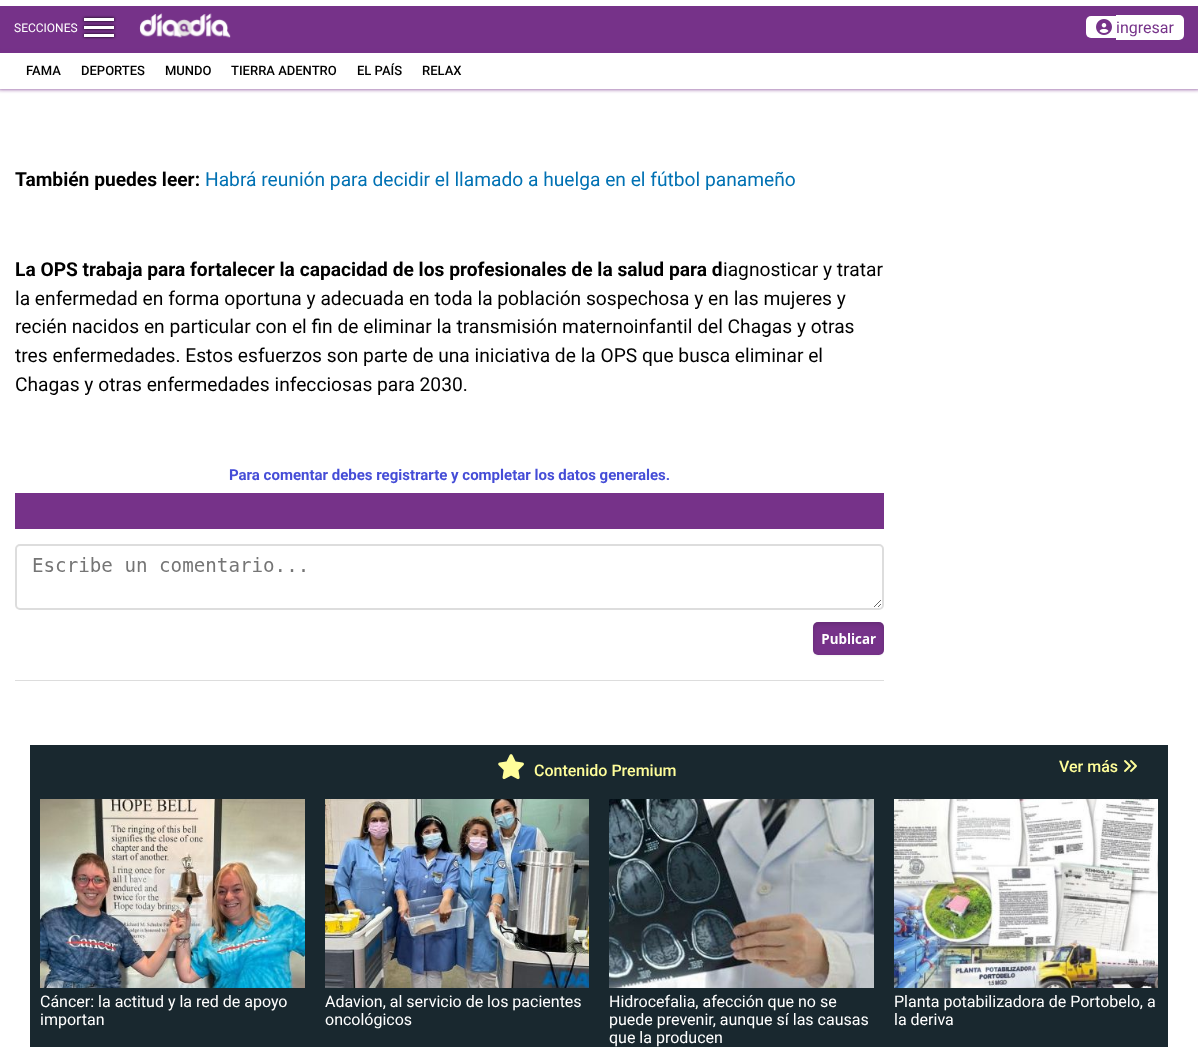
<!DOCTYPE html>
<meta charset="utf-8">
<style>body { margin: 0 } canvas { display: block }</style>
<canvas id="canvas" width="1198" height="1047"></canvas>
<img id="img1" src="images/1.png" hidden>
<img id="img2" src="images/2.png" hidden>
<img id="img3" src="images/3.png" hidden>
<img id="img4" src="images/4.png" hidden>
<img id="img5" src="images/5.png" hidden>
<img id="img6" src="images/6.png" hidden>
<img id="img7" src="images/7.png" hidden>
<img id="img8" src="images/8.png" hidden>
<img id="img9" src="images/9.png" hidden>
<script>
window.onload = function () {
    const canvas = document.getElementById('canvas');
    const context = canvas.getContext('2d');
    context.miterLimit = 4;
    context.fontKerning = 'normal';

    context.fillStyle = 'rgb(255, 255, 255)';
    context.fillRect(0, 0, 1198, 1047);
    context.fillStyle = 'rgb(118, 50, 137)';
    context.fillRect(0, 6, 1198, 47);
    context.fillStyle = 'rgb(0, 0, 0)';
    context.filter = 'blur(1.5px)';
    context.beginPath();
    context.rect(84, 18, 30, 3);
    context.fill();
    context.filter = 'none';
    context.fillStyle = 'rgb(255, 255, 255)';
    context.fillRect(84, 18, 30, 3);
    context.fillStyle = 'rgb(0, 0, 0)';
    context.filter = 'blur(1.5px)';
    context.beginPath();
    context.rect(84, 26, 30, 3);
    context.fill();
    context.filter = 'none';
    context.fillStyle = 'rgb(255, 255, 255)';
    context.fillRect(84, 26, 30, 3);
    context.fillStyle = 'rgb(0, 0, 0)';
    context.filter = 'blur(1.5px)';
    context.beginPath();
    context.rect(84, 34, 30, 3);
    context.fill();
    context.filter = 'none';
    context.fillStyle = 'rgb(255, 255, 255)';
    context.fillRect(84, 34, 30, 3);
    context.drawImage(document.getElementById('img1'), 139, 13, 92, 25);
    context.beginPath();
    context.roundRect(1086, 16, 30, 22, [5, 0, 0, 5]);
    context.fill();
    context.beginPath();
    context.roundRect(1116, 15, 68, 25, [0, 5, 5, 0]);
    context.fill();
    context.drawImage(document.getElementById('img2'), 1096, 19, 16, 16);
    context.save();
    context.beginPath();
    context.moveTo(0, 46);
    context.lineTo(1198, 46);
    context.lineTo(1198, 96);
    context.lineTo(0, 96);
    context.closePath();
    context.moveTo(-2, 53);
    context.lineTo(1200, 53);
    context.lineTo(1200, 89);
    context.lineTo(-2, 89);
    context.closePath();
    context.clip('evenodd');
    context.fillStyle = 'rgb(118, 50, 137)';
    context.filter = 'blur(2px)';
    context.beginPath();
    context.rect(-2, 53, 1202, 36);
    context.fill();
    context.filter = 'none';
    context.restore();
    context.drawImage(document.getElementById('img3'), 15, 493, 869, 188);
    context.fillStyle = 'rgb(25, 40, 47)';
    context.fillRect(30, 745, 1138, 302);
    context.drawImage(document.getElementById('img4'), 498, 754, 26, 26);
    context.drawImage(document.getElementById('img5'), 1124, 760, 13, 12);
    context.drawImage(document.getElementById('img6'), 40, 799, 265, 189);
    context.drawImage(document.getElementById('img7'), 325, 799, 264, 189);
    context.drawImage(document.getElementById('img8'), 609, 799, 265, 189);
    context.drawImage(document.getElementById('img9'), 894, 799, 264, 189);
    context.font = '12px Roboto';
    context.fillStyle = 'rgb(255, 255, 255)';
    context.fillText('SECCIONES', 14, 32);
    context.font = '16px Roboto';
    context.fillStyle = 'rgb(118, 50, 137)';
    context.fillText('ingresar', 1116, 33);
    context.font = '500 13px Roboto';
    context.fillStyle = 'rgb(0, 0, 0)';
    context.fillText('FAMA', 26, 75);
    context.fillText('DEPORTES', 81, 75);
    context.fillText('MUNDO', 165, 75);
    context.fillText('TIERRA ADENTRO', 231, 75);
    context.fillText('EL PAÍS', 357, 75);
    context.fillText('RELAX', 422, 75);
    context.font = 'bold 19.2px Roboto';
    context.fillText('También puedes leer:', 15, 186);
    context.font = '19.2px Roboto';
    context.fillStyle = 'rgb(0, 113, 179)';
    context.fillText('Habrá reunión para decidir el llamado a huelga en el fútbol panameño', 205, 186);
    context.font = 'bold 19.2px Roboto';
    context.fillStyle = 'rgb(0, 0, 0)';
    context.fillText('La OPS trabaja para fortalecer la capacidad de los profesionales de la salud para d', 15, 276);
    context.font = '19.2px Roboto';
    context.fillText('iagnosticar y tratar', 723, 276);
    context.fillText('la enfermedad en forma oportuna y adecuada en toda la población sospechosa y en las mujeres y', 15, 305);
    context.fillText('recién nacidos en particular con el fin de eliminar la transmisión maternoinfantil del Chagas y otras', 15, 333);
    context.fillText('tres enfermedades. Estos esfuerzos son parte de una iniciativa de la OPS que busca eliminar el', 15, 362);
    context.fillText('Chagas y otras enfermedades infecciosas para 2030.', 15, 391);
    context.font = 'bold 15px Roboto';
    context.fillStyle = 'rgb(69, 77, 215)';
    context.fillText('Para comentar debes registrarte y completar los datos generales.', 229, 480);
    context.font = '500 16px Roboto';
    context.fillStyle = 'rgb(255, 254, 154)';
    context.fillText('Contenido Premium', 534, 776);
    context.fillText('Ver más', 1059, 772);
    context.font = '16px Roboto';
    context.fillStyle = 'rgb(255, 255, 255)';
    context.fillText('Cáncer: la actitud y la red de apoyo', 40, 1007);
    context.fillText('importan', 40, 1025);
    context.fillText('Adavion, al servicio de los pacientes', 325, 1007);
    context.fillText('oncológicos', 325, 1025);
    context.fillText('Hidrocefalia, afección que no se', 609, 1007);
    context.fillText('puede prevenir, aunque sí las causas', 609, 1025);
    context.fillText('que la producen', 609, 1043);
    context.fillText('Planta potabilizadora de Portobelo, a', 894, 1007);
    context.fillText('la deriva', 894, 1025);
};
</script>
